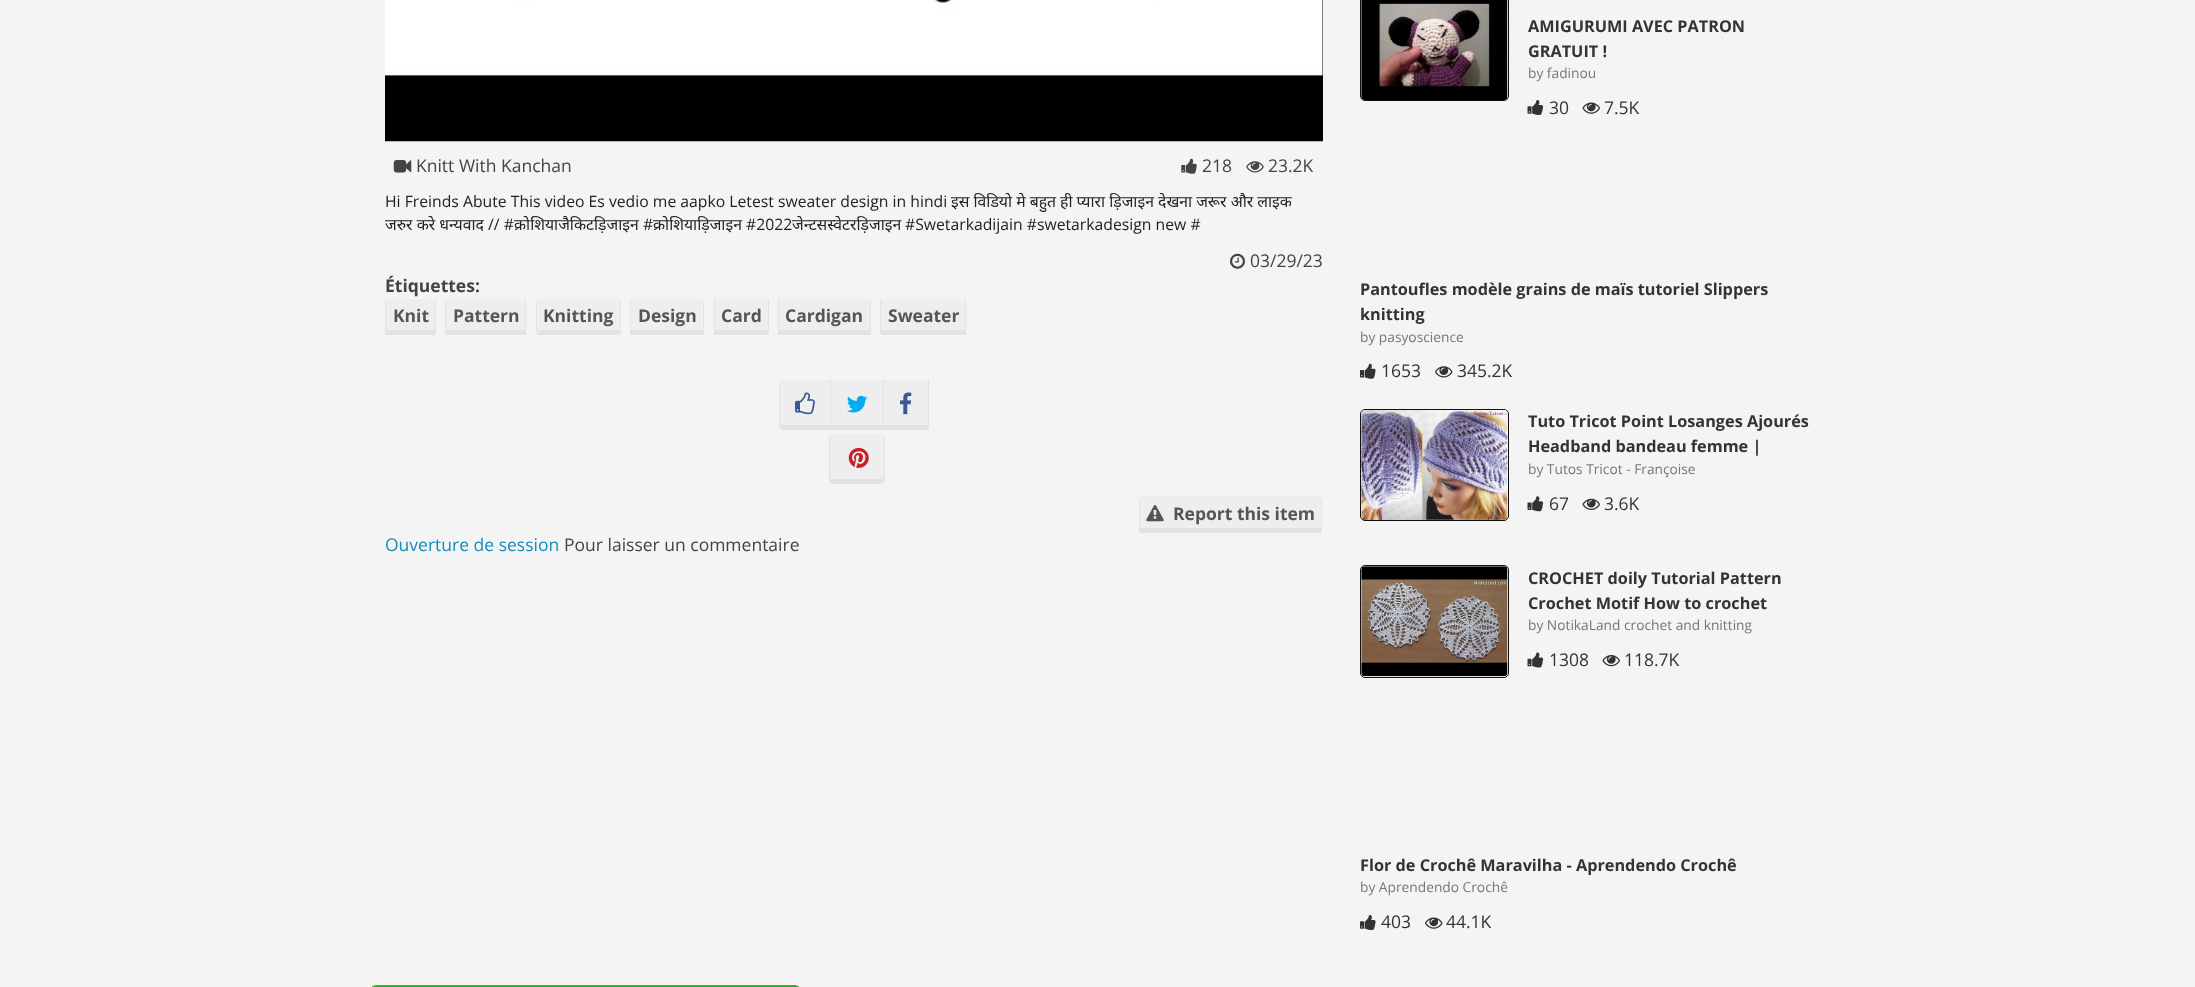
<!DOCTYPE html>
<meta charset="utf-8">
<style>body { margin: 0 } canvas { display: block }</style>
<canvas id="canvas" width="2195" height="987"></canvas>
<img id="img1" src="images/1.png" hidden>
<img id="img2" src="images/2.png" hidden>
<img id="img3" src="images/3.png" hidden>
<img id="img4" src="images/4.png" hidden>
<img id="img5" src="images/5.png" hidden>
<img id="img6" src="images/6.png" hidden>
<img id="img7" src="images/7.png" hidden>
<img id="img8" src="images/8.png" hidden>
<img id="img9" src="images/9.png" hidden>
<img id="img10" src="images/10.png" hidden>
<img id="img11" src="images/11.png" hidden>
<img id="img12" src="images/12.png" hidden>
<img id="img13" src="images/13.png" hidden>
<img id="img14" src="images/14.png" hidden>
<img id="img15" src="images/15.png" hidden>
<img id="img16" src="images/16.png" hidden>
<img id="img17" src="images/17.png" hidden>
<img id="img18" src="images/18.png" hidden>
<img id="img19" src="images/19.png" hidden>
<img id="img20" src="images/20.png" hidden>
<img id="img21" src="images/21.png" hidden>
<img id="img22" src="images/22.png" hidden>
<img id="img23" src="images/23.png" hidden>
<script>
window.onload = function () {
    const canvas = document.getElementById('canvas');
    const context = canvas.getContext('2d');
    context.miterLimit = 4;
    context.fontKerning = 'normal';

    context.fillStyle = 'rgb(244, 244, 244)';
    context.fillRect(0, 0, 2195, 987);
    context.fillStyle = 'rgb(0, 0, 0)';
    context.fillRect(1322, 0, 1, 141);
    context.drawImage(document.getElementById('img1'), 385, 0, 938, 142);
    context.drawImage(document.getElementById('img2'), 393, 160, 19, 13);
    context.drawImage(document.getElementById('img3'), 1181, 158, 16, 16);
    context.drawImage(document.getElementById('img4'), 1246, 161, 18, 12);
    context.drawImage(document.getElementById('img5'), 1230, 253, 15, 16);
    context.fillStyle = 'rgb(238, 238, 238)';
    context.beginPath();
    context.moveTo(388, 299);
    context.lineTo(434, 299);
    context.bezierCurveTo(434, 299, 435, 300, 435, 301);
    context.lineTo(435, 330);
    context.lineTo(386, 330);
    context.lineTo(386, 300);
    context.closePath();
    context.fill();
    context.fillStyle = 'rgb(226, 226, 226)';
    context.fillRect(435, 300, 1, 34);
    context.fillRect(386, 330, 49, 5);
    context.fillRect(385, 300, 1, 34);
    context.fillStyle = 'rgb(238, 238, 238)';
    context.beginPath();
    context.moveTo(448, 299);
    context.lineTo(524, 299);
    context.bezierCurveTo(524, 299, 525, 300, 525, 301);
    context.lineTo(525, 330);
    context.lineTo(446, 330);
    context.lineTo(446, 300);
    context.closePath();
    context.fill();
    context.fillStyle = 'rgb(226, 226, 226)';
    context.fillRect(525, 300, 1, 34);
    context.fillRect(446, 330, 79, 5);
    context.fillRect(445, 300, 1, 34);
    context.fillStyle = 'rgb(238, 238, 238)';
    context.beginPath();
    context.moveTo(539, 299);
    context.lineTo(619, 299);
    context.bezierCurveTo(619, 299, 620, 300, 620, 301);
    context.lineTo(620, 330);
    context.lineTo(538, 330);
    context.lineTo(538, 300);
    context.closePath();
    context.fill();
    context.fillStyle = 'rgb(226, 226, 226)';
    context.fillRect(620, 300, 1, 34);
    context.fillRect(538, 330, 82, 5);
    context.fillRect(536, 300, 1, 34);
    context.fillStyle = 'rgb(238, 238, 238)';
    context.beginPath();
    context.moveTo(632, 299);
    context.lineTo(701, 299);
    context.bezierCurveTo(702, 299, 702, 300, 702, 301);
    context.lineTo(702, 330);
    context.lineTo(631, 330);
    context.lineTo(631, 300);
    context.closePath();
    context.fill();
    context.fillStyle = 'rgb(226, 226, 226)';
    context.fillRect(703, 300, 1, 34);
    context.fillRect(631, 330, 72, 5);
    context.fillRect(630, 300, 1, 34);
    context.fillStyle = 'rgb(238, 238, 238)';
    context.beginPath();
    context.moveTo(716, 299);
    context.lineTo(766, 299);
    context.bezierCurveTo(767, 299, 768, 300, 768, 301);
    context.lineTo(768, 330);
    context.lineTo(715, 330);
    context.lineTo(715, 300);
    context.closePath();
    context.fill();
    context.fillStyle = 'rgb(226, 226, 226)';
    context.fillRect(768, 300, 1, 34);
    context.fillRect(715, 330, 53, 5);
    context.fillRect(714, 300, 1, 34);
    context.fillStyle = 'rgb(238, 238, 238)';
    context.beginPath();
    context.moveTo(780, 299);
    context.lineTo(869, 299);
    context.bezierCurveTo(869, 299, 870, 300, 870, 301);
    context.lineTo(870, 330);
    context.lineTo(779, 330);
    context.lineTo(779, 300);
    context.closePath();
    context.fill();
    context.fillStyle = 'rgb(226, 226, 226)';
    context.fillRect(870, 300, 1, 34);
    context.fillRect(779, 330, 91, 5);
    context.fillRect(778, 300, 1, 34);
    context.fillStyle = 'rgb(238, 238, 238)';
    context.beginPath();
    context.moveTo(882, 299);
    context.lineTo(964, 299);
    context.bezierCurveTo(964, 299, 965, 300, 965, 301);
    context.lineTo(965, 330);
    context.lineTo(881, 330);
    context.lineTo(881, 300);
    context.closePath();
    context.fill();
    context.fillStyle = 'rgb(226, 226, 226)';
    context.fillRect(965, 300, 1, 34);
    context.fillRect(881, 330, 84, 5);
    context.fillRect(880, 300, 1, 34);
    context.fillStyle = 'rgb(238, 238, 238)';
    context.beginPath();
    context.moveTo(784, 380);
    context.lineTo(830, 380);
    context.lineTo(830, 425);
    context.lineTo(780, 425);
    context.lineTo(780, 385);
    context.bezierCurveTo(780, 382, 782, 380, 784, 380);
    context.closePath();
    context.fill();
    context.fillStyle = 'rgb(226, 226, 226)';
    context.beginPath();
    context.moveTo(784, 380);
    context.lineTo(831, 380);
    context.lineTo(831, 430);
    context.lineTo(784, 430);
    context.bezierCurveTo(781, 430, 779, 428, 779, 425);
    context.lineTo(779, 385);
    context.bezierCurveTo(779, 382, 781, 380, 784, 380);
    context.closePath();
    context.moveTo(784, 380);
    context.lineTo(830, 380);
    context.lineTo(830, 425);
    context.lineTo(780, 425);
    context.lineTo(780, 385);
    context.bezierCurveTo(780, 382, 782, 380, 784, 380);
    context.closePath();
    context.fill('evenodd');
    context.drawImage(document.getElementById('img6'), 795, 392, 20, 23);
    context.fillStyle = 'rgb(238, 238, 238)';
    context.fillRect(831, 380, 52, 45);
    context.fillStyle = 'rgb(226, 226, 226)';
    context.fillRect(883, 380, 1, 50);
    context.fillRect(830, 425, 54, 5);
    context.drawImage(document.getElementById('img7'), 847, 395, 21, 18);
    context.fillStyle = 'rgb(238, 238, 238)';
    context.fillRect(884, 380, 44, 45);
    context.fillStyle = 'rgb(226, 226, 226)';
    context.fillRect(928, 380, 1, 50);
    context.fillRect(883, 425, 46, 5);
    context.drawImage(document.getElementById('img8'), 900, 392, 12, 23);
    context.fillStyle = 'rgb(238, 238, 238)';
    context.beginPath();
    context.moveTo(834, 434);
    context.lineTo(880, 434);
    context.bezierCurveTo(882, 434, 884, 436, 884, 439);
    context.lineTo(884, 479);
    context.lineTo(830, 479);
    context.lineTo(830, 439);
    context.bezierCurveTo(830, 436, 832, 434, 834, 434);
    context.closePath();
    context.fill();
    context.fillStyle = 'rgb(226, 226, 226)';
    context.beginPath();
    context.moveTo(834, 434);
    context.lineTo(880, 434);
    context.bezierCurveTo(883, 434, 885, 436, 885, 439);
    context.lineTo(885, 479);
    context.bezierCurveTo(885, 482, 883, 484, 880, 484);
    context.lineTo(834, 484);
    context.bezierCurveTo(831, 484, 829, 482, 829, 479);
    context.lineTo(829, 439);
    context.bezierCurveTo(829, 436, 831, 434, 834, 434);
    context.closePath();
    context.moveTo(834, 434);
    context.lineTo(880, 434);
    context.bezierCurveTo(882, 434, 884, 436, 884, 439);
    context.lineTo(884, 479);
    context.lineTo(830, 479);
    context.lineTo(830, 439);
    context.bezierCurveTo(830, 436, 832, 434, 834, 434);
    context.closePath();
    context.fill('evenodd');
    context.drawImage(document.getElementById('img9'), 848, 447, 21, 21);
    context.fillStyle = 'rgb(238, 238, 238)';
    context.beginPath();
    context.moveTo(1141, 496);
    context.lineTo(1320, 496);
    context.bezierCurveTo(1321, 496, 1321, 497, 1321, 499);
    context.lineTo(1321, 528);
    context.lineTo(1140, 528);
    context.lineTo(1140, 497);
    context.closePath();
    context.fill();
    context.fillStyle = 'rgb(226, 226, 226)';
    context.fillRect(1321, 498, 1, 33);
    context.fillRect(1140, 528, 181, 5);
    context.fillRect(1139, 498, 1, 33);
    context.drawImage(document.getElementById('img10'), 1146, 505, 18, 17);
    context.beginPath();
    context.roundRect(1360.5, -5.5, 148, 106, 4.5);
    context.strokeStyle = 'rgb(17, 17, 17)';
    context.stroke();
    context.drawImage(document.getElementById('img11'), 1361, 0, 147, 100);
    context.drawImage(document.getElementById('img12'), 1527, 100, 17, 15);
    context.drawImage(document.getElementById('img13'), 1582, 102, 18, 12);
    context.drawImage(document.getElementById('img14'), 1360, 363, 16, 16);
    context.drawImage(document.getElementById('img15'), 1435, 366, 18, 12);
    context.beginPath();
    context.roundRect(1360.5, 409.5, 148, 111, 4.5);
    context.stroke();
    context.drawImage(document.getElementById('img16'), 1361, 410, 147, 110);
    context.drawImage(document.getElementById('img17'), 1527, 496, 17, 16);
    context.drawImage(document.getElementById('img18'), 1582, 498, 18, 12);
    context.beginPath();
    context.roundRect(1360.5, 565.5, 148, 112, 4.5);
    context.stroke();
    context.drawImage(document.getElementById('img19'), 1361, 566, 147, 111);
    context.drawImage(document.getElementById('img20'), 1527, 652, 17, 16);
    context.drawImage(document.getElementById('img21'), 1602, 655, 18, 12);
    context.drawImage(document.getElementById('img22'), 1360, 915, 16, 15);
    context.drawImage(document.getElementById('img23'), 1425, 917, 18, 12);
    context.fillStyle = 'rgb(40, 182, 44)';
    context.beginPath();
    context.moveTo(376, 985);
    context.lineTo(795, 985);
    context.bezierCurveTo(797, 985, 799, 987, 799, 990);
    context.lineTo(799, 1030);
    context.lineTo(372, 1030);
    context.lineTo(372, 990);
    context.bezierCurveTo(372, 987, 374, 985, 376, 985);
    context.closePath();
    context.fill();
    context.fillStyle = 'rgb(35, 161, 39)';
    context.beginPath();
    context.moveTo(376, 985);
    context.lineTo(795, 985);
    context.bezierCurveTo(798, 985, 800, 987, 800, 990);
    context.lineTo(800, 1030);
    context.bezierCurveTo(800, 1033, 798, 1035, 795, 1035);
    context.lineTo(376, 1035);
    context.bezierCurveTo(373, 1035, 371, 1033, 371, 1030);
    context.lineTo(371, 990);
    context.bezierCurveTo(371, 987, 373, 985, 376, 985);
    context.closePath();
    context.moveTo(376, 985);
    context.lineTo(795, 985);
    context.bezierCurveTo(797, 985, 799, 987, 799, 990);
    context.lineTo(799, 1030);
    context.lineTo(372, 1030);
    context.lineTo(372, 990);
    context.bezierCurveTo(372, 987, 374, 985, 376, 985);
    context.closePath();
    context.fill('evenodd');
    context.font = '17.5px Open Sans';
    context.fillStyle = 'rgb(68, 68, 68)';
    context.fillText('Knitt With Kanchan', 416, 172);
    context.fillText('218', 1202, 172);
    context.fillText('23.2K', 1268, 172);
    context.font = '15.75px Open Sans';
    context.fillStyle = 'rgb(34, 34, 34)';
    context.fillText('Hi Freinds Abute This video Es vedio me aapko Letest sweater design in hindi', 385, 207);
    context.font = '15.75px Noto Sans';
    context.fillText('इस विडियो मे बहुत ही प्यारा ड़िजाइन देखना जरूर और लाइक', 951, 207);
    context.fillText('जरुर करे धन्यवाद', 385, 230);
    context.font = '15.75px Open Sans';
    context.fillText('// #', 488, 230);
    context.font = '15.75px Noto Sans';
    context.fillText('क्रोशियाजैकिटड़िजाइन', 514, 230);
    context.font = '15.75px Open Sans';
    context.fillText('#', 643, 230);
    context.font = '15.75px Noto Sans';
    context.fillText('क्रोशियाड़िजाइन', 653, 230);
    context.font = '15.75px Open Sans';
    context.fillText('#2022', 746, 230);
    context.font = '15.75px Noto Sans';
    context.fillText('जेन्टसस्वेटरड़िजाइन', 792, 230);
    context.font = '15.75px Open Sans';
    context.fillText('#Swetarkadijain #swetarkadesign new #', 905, 230);
    context.font = '17.5px Open Sans';
    context.fillStyle = 'rgb(68, 68, 68)';
    context.fillText('03/29/23', 1250, 267);
    context.font = 'bold 17.5px Open Sans';
    context.fillText('Étiquettes:', 385, 292);
    context.fillStyle = 'rgb(85, 85, 85)';
    context.fillText('Knit', 393, 322);
    context.fillText('Pattern', 453, 322);
    context.fillText('Knitting', 543, 322);
    context.fillText('Design', 638, 322);
    context.fillText('Card', 721, 322);
    context.fillText('Cardigan', 785, 322);
    context.fillText('Sweater', 888, 322);
    context.fillText('Report this item', 1173, 520);
    context.font = '17.5px Open Sans';
    context.fillStyle = 'rgb(21, 140, 186)';
    context.fillText('Ouverture de session', 385, 551);
    context.fillStyle = 'rgb(68, 68, 68)';
    context.fillText('Pour laisser un commentaire', 564, 551);
    context.font = 'bold 16.25px Open Sans';
    context.fillStyle = 'rgb(51, 51, 51)';
    context.fillText('AMIGURUMI AVEC PATRON', 1528, 32);
    context.fillText('GRATUIT !', 1528, 57);
    context.font = '13.75px Open Sans';
    context.fillStyle = 'rgb(119, 119, 119)';
    context.fillText('by fadinou', 1528, 78);
    context.font = '17.5px Open Sans';
    context.fillStyle = 'rgb(51, 51, 51)';
    context.fillText('30', 1549, 114);
    context.fillText('7.5K', 1604, 114);
    context.font = 'bold 16.25px Open Sans';
    context.fillText('Pantoufles modèle grains de maïs tutoriel Slippers', 1360, 295);
    context.fillText('knitting', 1360, 320);
    context.font = '13.75px Open Sans';
    context.fillStyle = 'rgb(119, 119, 119)';
    context.fillText('by pasyoscience', 1360, 342);
    context.font = '17.5px Open Sans';
    context.fillStyle = 'rgb(51, 51, 51)';
    context.fillText('1653', 1381, 377);
    context.fillText('345.2K', 1457, 377);
    context.font = 'bold 16.25px Open Sans';
    context.fillText('Tuto Tricot Point Losanges Ajourés', 1528, 427);
    context.fillText('Headband bandeau femme |', 1528, 452);
    context.font = '13.75px Open Sans';
    context.fillStyle = 'rgb(119, 119, 119)';
    context.fillText('by Tutos Tricot - Françoise', 1528, 474);
    context.font = '17.5px Open Sans';
    context.fillStyle = 'rgb(51, 51, 51)';
    context.fillText('67', 1549, 510);
    context.fillText('3.6K', 1604, 510);
    context.font = 'bold 16.25px Open Sans';
    context.fillText('CROCHET doily Tutorial Pattern', 1528, 584);
    context.fillText('Crochet Motif How to crochet', 1528, 609);
    context.font = '13.75px Open Sans';
    context.fillStyle = 'rgb(119, 119, 119)';
    context.fillText('by NotikaLand crochet and knitting', 1528, 630);
    context.font = '17.5px Open Sans';
    context.fillStyle = 'rgb(51, 51, 51)';
    context.fillText('1308', 1549, 666);
    context.fillText('118.7K', 1624, 666);
    context.font = 'bold 16.25px Open Sans';
    context.fillText('Flor de Crochê Maravilha - Aprendendo Crochê', 1360, 871);
    context.font = '13.75px Open Sans';
    context.fillStyle = 'rgb(119, 119, 119)';
    context.fillText('by Aprendendo Crochê', 1360, 892);
    context.font = '17.5px Open Sans';
    context.fillStyle = 'rgb(51, 51, 51)';
    context.fillText('403', 1381, 928);
    context.fillText('44.1K', 1446, 928);
};
</script>
